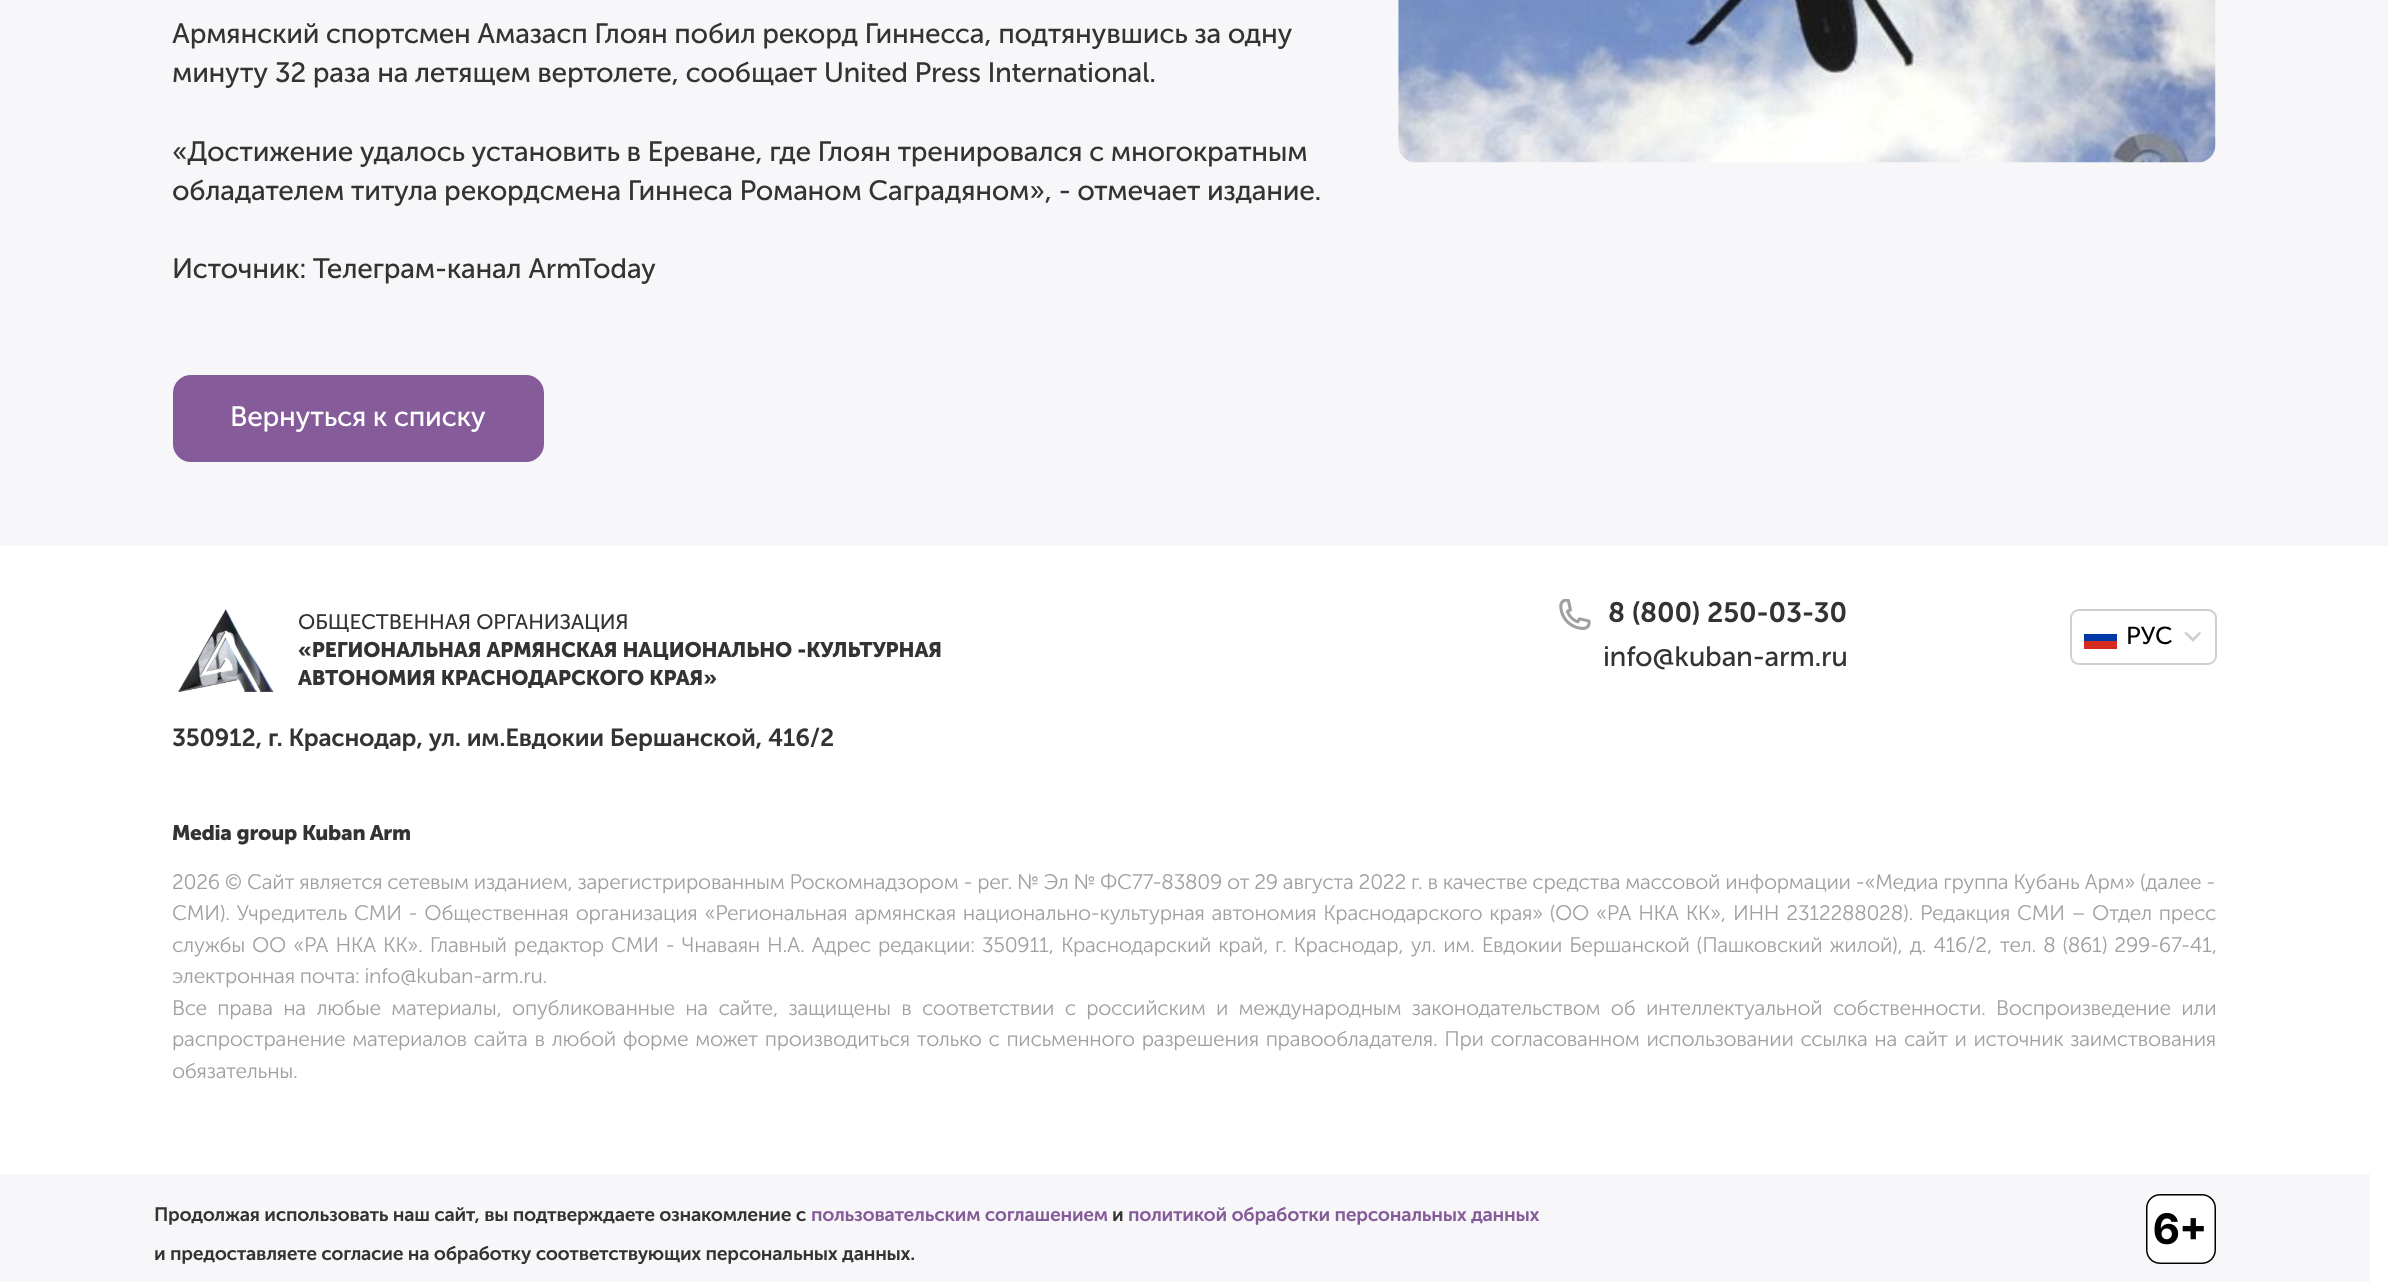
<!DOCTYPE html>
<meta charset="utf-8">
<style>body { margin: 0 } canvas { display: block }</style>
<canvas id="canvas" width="2388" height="1282"></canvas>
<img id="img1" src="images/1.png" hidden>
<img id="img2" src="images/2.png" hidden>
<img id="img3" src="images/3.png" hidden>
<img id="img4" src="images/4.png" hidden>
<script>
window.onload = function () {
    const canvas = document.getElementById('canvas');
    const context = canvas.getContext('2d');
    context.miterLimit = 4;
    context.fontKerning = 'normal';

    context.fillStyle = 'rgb(247, 247, 249)';
    context.fillRect(0, 0, 2388, 1282);
    context.drawImage(document.getElementById('img1'), 1398, 0, 818, 163);
    context.fillStyle = 'rgb(134, 91, 154)';
    context.beginPath();
    context.roundRect(174, 376, 369, 85, 17);
    context.fill();
    context.strokeStyle = 'rgb(134, 91, 154)';
    context.lineWidth = 2;
    context.stroke();
    context.fillStyle = 'rgb(255, 255, 255)';
    context.fillRect(0, 546, 2388, 736);
    context.drawImage(document.getElementById('img2'), 178, 609, 96, 83);
    context.drawImage(document.getElementById('img3'), 1559, 599, 32, 31);
    context.beginPath();
    context.roundRect(2071, 610, 145, 54, 8);
    context.strokeStyle = 'rgb(208, 207, 206)';
    context.stroke();
    context.fillStyle = 'rgb(213, 43, 30)';
    context.fillRect(2084, 641, 33, 8);
    context.fillStyle = 'rgb(0, 57, 166)';
    context.fillRect(2084, 634, 33, 7);
    context.fillStyle = 'rgb(208, 207, 206)';
    context.beginPath();
    context.moveTo(2186.5, 632);
    context.lineTo(2193, 638);
    context.lineTo(2199, 632);
    context.lineTo(2201.5, 633);
    context.lineTo(2193, 642);
    context.lineTo(2184, 633);
    context.closePath();
    context.fill();
    context.fillStyle = 'rgb(247, 247, 249)';
    context.fillRect(0, 1174, 2370, 108);
    context.drawImage(document.getElementById('img4'), 2146, 1194, 70, 70);
    context.letterSpacing = '-0.28px';
    context.font = '28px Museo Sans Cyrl';
    context.fillStyle = 'rgb(51, 51, 51)';
    context.fillText('Армянский спортсмен Амазасп Глоян побил рекорд Гиннесса, подтянувшись за одну', 172, 43);
    context.fillText('минуту 32 раза на летящем вертолете, сообщает United Press International.', 172, 82);
    context.fillText('«Достижение удалось установить в Ереване, где Глоян тренировался с многократным', 172, 161);
    context.fillText('обладателем титула рекордсмена Гиннеса Романом Саградяном», - отмечает издание.', 172, 200);
    context.fillText('Источник: Телеграм-канал ArmToday', 172, 278);
    context.fillStyle = 'rgb(255, 255, 255)';
    context.fillText('Вернуться к списку', 230, 426);
    context.letterSpacing = '-0.1px';
    context.font = '21px Museo Sans Cyrl';
    context.fillStyle = 'rgb(51, 51, 51)';
    context.fillText('ОБЩЕСТВЕННАЯ ОРГАНИЗАЦИЯ', 298, 629);
    context.font = 'bold 21px Museo Sans Cyrl';
    context.fillText('«РЕГИОНАЛЬНАЯ АРМЯНСКАЯ НАЦИОНАЛЬНО -КУЛЬТУРНАЯ', 298, 657);
    context.fillText('АВТОНОМИЯ КРАСНОДАРСКОГО КРАЯ»', 298, 685);
    context.letterSpacing = '-0.28px';
    context.font = '600 24.5px Museo Sans Cyrl';
    context.fillText('350912, г. Краснодар, ул. им.Евдокии Бершанской, 416/2', 172, 746);
    context.letterSpacing = '-0.1px';
    context.font = '600 28px Museo Sans Cyrl';
    context.fillText('8 (800) 250-03-30', 1608, 622);
    context.letterSpacing = '-0.28px';
    context.font = '28px Museo Sans Cyrl';
    context.fillText('info@kuban-arm.ru', 1603, 666);
    context.letterSpacing = '0px';
    context.font = '24.5px Museo Sans Cyrl';
    context.fillStyle = 'rgb(0, 0, 0)';
    context.fillText('РУС', 2126, 644);
    context.letterSpacing = '-0.28px';
    context.font = 'bold 21px Museo Sans Cyrl';
    context.fillStyle = 'rgb(51, 51, 51)';
    context.fillText('Media group Kuban Arm', 172, 840);
    context.font = '300 21px Museo Sans Cyrl';
    context.fillStyle = 'rgb(160, 160, 164)';
    context.fillText('2026 © Сайт является сетевым изданием, зарегистрированным Роскомнадзором - рег. № Эл № ФС77-83809 от 29 августа 2022 г. в качестве средства массовой информации -«Медиа группа Кубань Арм» (далее -', 172, 889);
    context.wordSpacing = '2px';
    context.fillText('СМИ). Учредитель СМИ - Общественная организация «Региональная армянская национально-культурная автономия Краснодарского края» (ОО «РА НКА КК», ИНН 2312288028).', 172, 920);
    context.fillText('Редакция СМИ – Отдел пресс', 1920, 920);
    context.wordSpacing = '2.1px';
    context.fillText('службы ОО «РА НКА КК». Главный редактор СМИ - Чнаваян Н.А. Адрес редакции: 350911, Краснодарский край,', 172, 952);
    context.fillText('г. Краснодар, ул. им. Евдокии Бершанской (Пашковский жилой), д. 416/2,', 1275, 952);
    context.fillText('тел. 8 (861) 299-67-41,', 2000, 952);
    context.wordSpacing = '0px';
    context.fillText('электронная почта: info@kuban-arm.ru.', 172, 983);
    context.wordSpacing = '5.5px';
    context.fillText('Все права на любые материалы, опубликованные на сайте, защищены в соответствии с российским и международным законодательством об интеллектуальной собственности. Воспроизведение или', 172, 1015);
    context.wordSpacing = '1.9px';
    context.fillText('распространение материалов сайта в любой форме может производиться только с письменного разрешения правообладателя. При согласованном использовании ссылка на сайт и источник заимствования', 172, 1046);
    context.wordSpacing = '0px';
    context.fillText('обязательны.', 172, 1078);
    context.font = '600 19.25px Museo Sans Cyrl';
    context.fillStyle = 'rgb(51, 51, 51)';
    context.fillText('Продолжая использовать наш сайт, вы подтверждаете ознакомление с', 154, 1221);
    context.fillStyle = 'rgb(134, 91, 154)';
    context.fillText('пользовательским соглашением', 811, 1221);
    context.fillStyle = 'rgb(51, 51, 51)';
    context.fillText('и', 1112, 1221);
    context.fillStyle = 'rgb(134, 91, 154)';
    context.fillText('политикой обработки персональных данных', 1128, 1221);
    context.fillStyle = 'rgb(51, 51, 51)';
    context.fillText('и предоставляете согласие на обработку соответствующих персональных данных.', 154, 1260);
};
</script>
